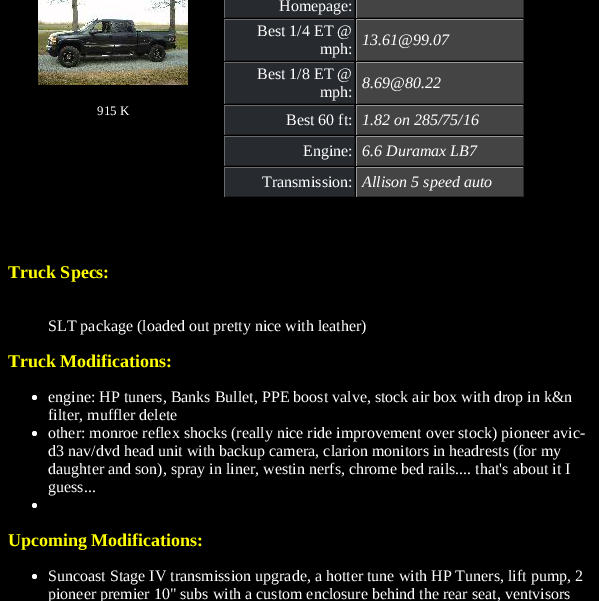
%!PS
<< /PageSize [599 601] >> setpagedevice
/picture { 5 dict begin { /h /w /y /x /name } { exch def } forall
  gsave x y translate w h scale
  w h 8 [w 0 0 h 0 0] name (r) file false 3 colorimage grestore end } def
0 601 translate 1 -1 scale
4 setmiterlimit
0 setgray
0 0 599 601 rectfill
(img1.rgb) 38 0 150 85 picture
/LiberationSerif-Regular [13 0 0 -13 0 0] selectfont
1 setgray
97 115 moveto (915 K) show
0.153 0.165 0.184 setrgbcolor
225 0 129 17 rectfill
0.098 setgray
354 0 1 18 rectfill
224 17 131 1 rectfill
0.42 setgray
224 0 1 18 rectfill
/LiberationSerif-Regular [16 0 0 -16 0 0] selectfont
1 setgray
279 11 moveto (Homepage:) show
0.267 setgray
357 0 166 17 rectfill
0.169 setgray
523 0 1 18 rectfill
356 17 168 1 rectfill
0.6 setgray
356 0 1 18 rectfill
0.153 0.165 0.184 setrgbcolor
225 20 129 40 rectfill
0.42 setgray
224 19 131 1 rectfill
0.098 setgray
354 19 1 42 rectfill
224 60 131 1 rectfill
0.42 setgray
224 19 1 42 rectfill
1 setgray
257 36 moveto (Best 1/4 ET @) show
320 54 moveto (mph:) show
0.267 setgray
357 20 166 40 rectfill
0.6 setgray
356 19 168 1 rectfill
0.169 setgray
523 19 1 42 rectfill
356 60 168 1 rectfill
0.6 setgray
356 19 1 42 rectfill
/LiberationSerif-Italic [16 0 0 -16 0 0] selectfont
1 setgray
362 45 moveto (13.61@99.07) show
0.153 0.165 0.184 setrgbcolor
225 63 129 40 rectfill
0.42 setgray
224 62 131 1 rectfill
0.098 setgray
354 62 1 42 rectfill
224 103 131 1 rectfill
0.42 setgray
224 62 1 42 rectfill
/LiberationSerif-Regular [16 0 0 -16 0 0] selectfont
1 setgray
257 79 moveto (Best 1/8 ET @) show
320 97 moveto (mph:) show
0.267 setgray
357 63 166 40 rectfill
0.6 setgray
356 62 168 1 rectfill
0.169 setgray
523 62 1 42 rectfill
356 103 168 1 rectfill
0.6 setgray
356 62 1 42 rectfill
/LiberationSerif-Italic [16 0 0 -16 0 0] selectfont
1 setgray
362 88 moveto (8.69@80.22) show
0.153 0.165 0.184 setrgbcolor
225 106 129 28 rectfill
0.42 setgray
224 105 131 1 rectfill
0.098 setgray
354 105 1 30 rectfill
224 134 131 1 rectfill
0.42 setgray
224 105 1 30 rectfill
/LiberationSerif-Regular [16 0 0 -16 0 0] selectfont
1 setgray
286 125 moveto (Best 60 ft:) show
0.267 setgray
357 106 166 28 rectfill
0.6 setgray
356 105 168 1 rectfill
0.169 setgray
523 105 1 30 rectfill
356 134 168 1 rectfill
0.6 setgray
356 105 1 30 rectfill
/LiberationSerif-Italic [16 0 0 -16 0 0] selectfont
1 setgray
362 125 moveto (1.82 on 285/75/16) show
0.153 0.165 0.184 setrgbcolor
225 137 129 28 rectfill
0.42 setgray
224 136 131 1 rectfill
0.098 setgray
354 136 1 30 rectfill
224 165 131 1 rectfill
0.42 setgray
224 136 1 30 rectfill
/LiberationSerif-Regular [16 0 0 -16 0 0] selectfont
1 setgray
303 156 moveto (Engine:) show
0.267 setgray
357 137 166 28 rectfill
0.6 setgray
356 136 168 1 rectfill
0.169 setgray
523 136 1 30 rectfill
356 165 168 1 rectfill
0.6 setgray
356 136 1 30 rectfill
/LiberationSerif-Italic [16 0 0 -16 0 0] selectfont
1 setgray
362 156 moveto (6.6 Duramax LB7) show
0.153 0.165 0.184 setrgbcolor
225 168 129 28 rectfill
0.42 setgray
224 167 131 1 rectfill
0.098 setgray
354 167 1 30 rectfill
224 196 131 1 rectfill
0.42 setgray
224 167 1 30 rectfill
/LiberationSerif-Regular [16 0 0 -16 0 0] selectfont
1 setgray
262 187 moveto (Transmission:) show
0.267 setgray
357 168 166 28 rectfill
0.6 setgray
356 167 168 1 rectfill
0.169 setgray
523 167 1 30 rectfill
356 196 168 1 rectfill
0.6 setgray
356 167 1 30 rectfill
/LiberationSerif-Italic [16 0 0 -16 0 0] selectfont
1 setgray
362 187 moveto (Allison 5 speed auto) show
/LiberationSerif-Bold [18 0 0 -18 0 0] selectfont
1 1 0 setrgbcolor
8 278 moveto (Truck Specs:) show
/LiberationSerif-Regular [16 0 0 -16 0 0] selectfont
1 setgray
48 331 moveto (SLT package \(loaded out pretty nice with leather\)) show
/LiberationSerif-Bold [18 0 0 -18 0 0] selectfont
1 1 0 setrgbcolor
8 367 moveto (Truck Modifications:) show
1 setgray
newpath 34.5 397.5 2.5 0 360 arc closepath fill
/LiberationSerif-Regular [16 0 0 -16 0 0] selectfont
48 402 moveto (engine: HP tuners, Banks Bullet, PPE boost valve, stock air box with drop in k&n) show
48 420 moveto (filter, muffler delete) show
newpath 34.5 433.5 2.5 0 360 arc closepath fill
48 438 moveto (other: monroe reflex shocks \(really nice ride improvement over stock\) pioneer avic-) show
48 456 moveto (d3 nav/dvd head unit with backup camera, clarion monitors in headrests \(for my) show
48 474 moveto (daughter and son\), spray in liner, westin nerfs, chrome bed rails.... that's about it I) show
48 492 moveto (guess...) show
newpath 34.5 505.5 2.5 0 360 arc closepath fill
/LiberationSerif-Bold [18 0 0 -18 0 0] selectfont
1 1 0 setrgbcolor
8 546 moveto (Upcoming Modifications:) show
1 setgray
newpath 34.5 576.5 2.5 0 360 arc closepath fill
/LiberationSerif-Regular [16 0 0 -16 0 0] selectfont
48 581 moveto (Suncoast Stage IV transmission upgrade, a hotter tune with HP Tuners, lift pump, 2) show
48 599 moveto (pioneer premier 10" subs with a custom enclosure behind the rear seat, ventvisors) show
showpage
